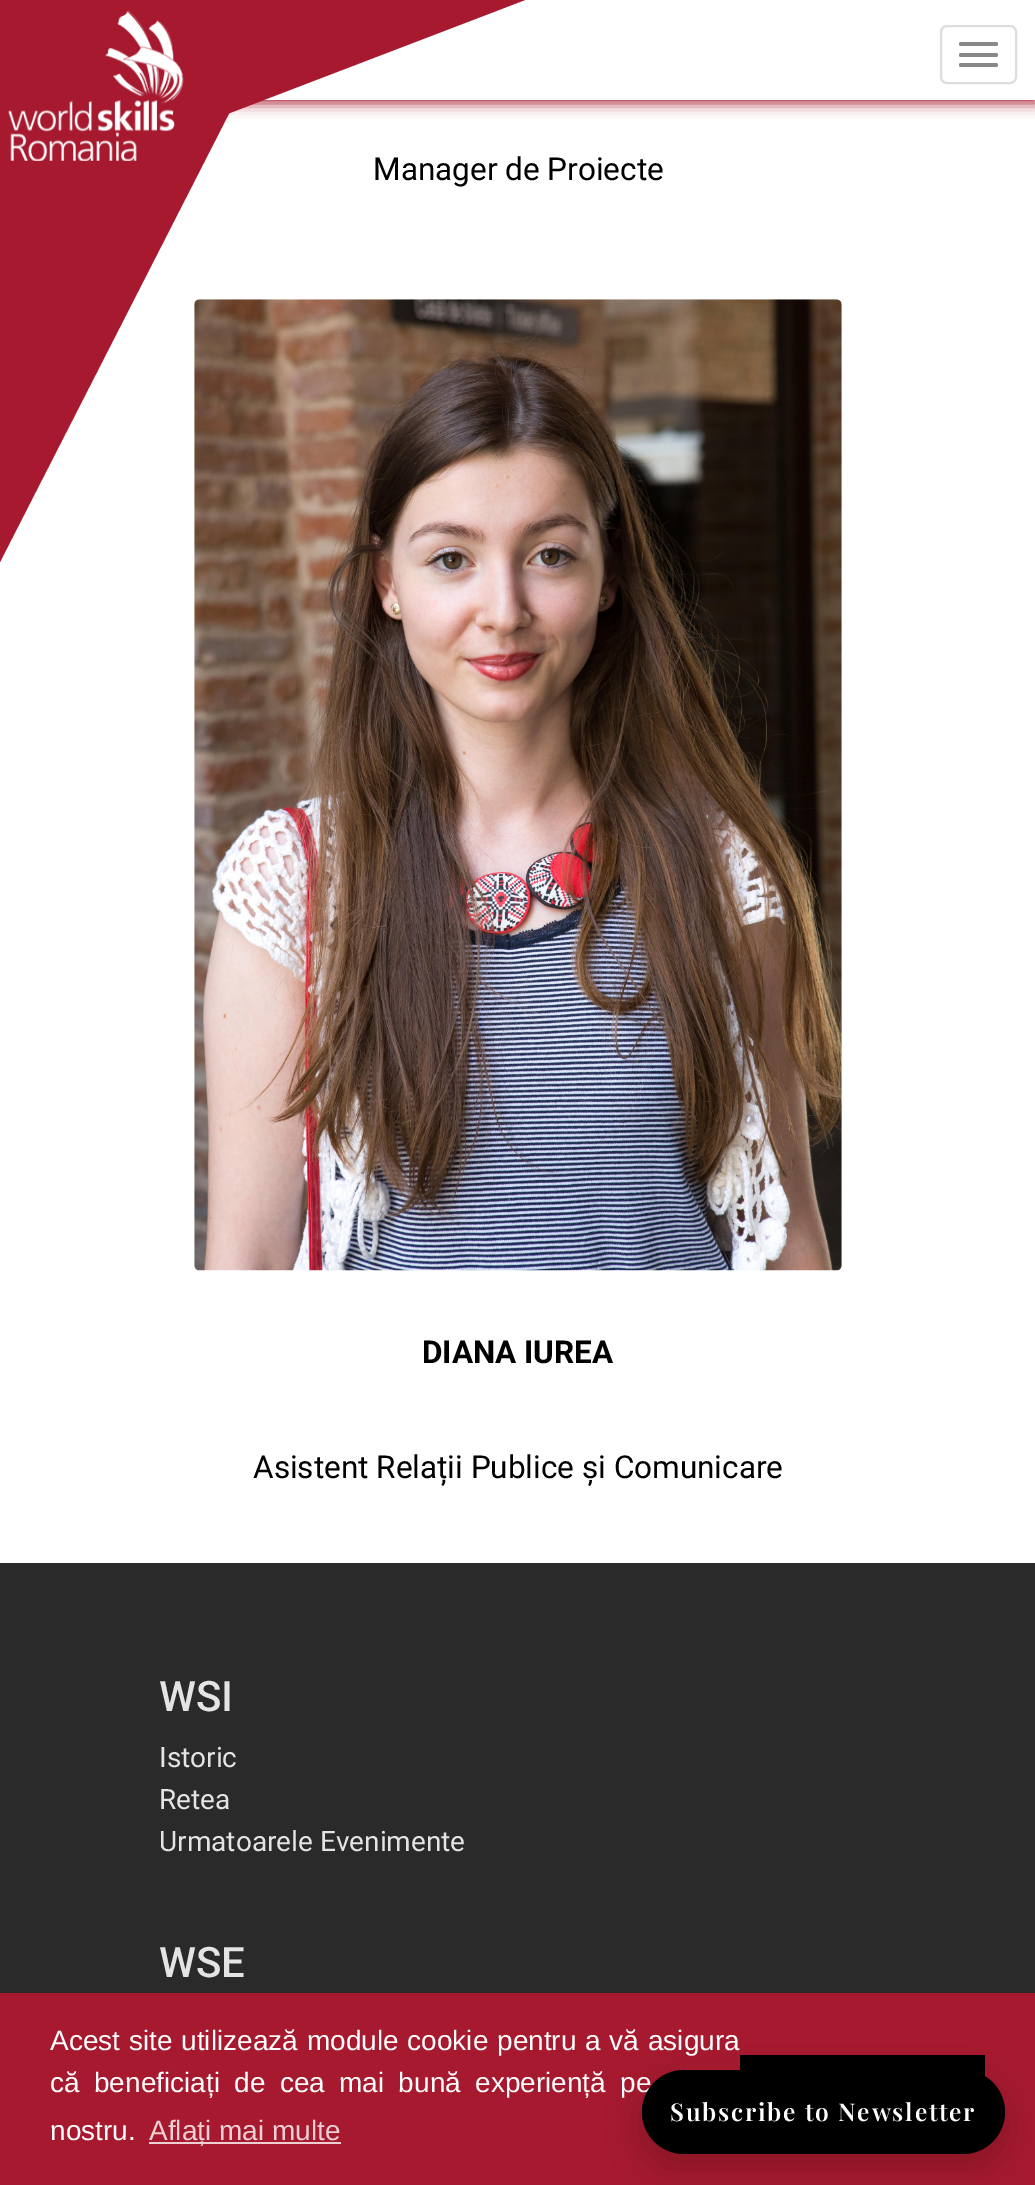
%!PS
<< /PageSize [1035 2185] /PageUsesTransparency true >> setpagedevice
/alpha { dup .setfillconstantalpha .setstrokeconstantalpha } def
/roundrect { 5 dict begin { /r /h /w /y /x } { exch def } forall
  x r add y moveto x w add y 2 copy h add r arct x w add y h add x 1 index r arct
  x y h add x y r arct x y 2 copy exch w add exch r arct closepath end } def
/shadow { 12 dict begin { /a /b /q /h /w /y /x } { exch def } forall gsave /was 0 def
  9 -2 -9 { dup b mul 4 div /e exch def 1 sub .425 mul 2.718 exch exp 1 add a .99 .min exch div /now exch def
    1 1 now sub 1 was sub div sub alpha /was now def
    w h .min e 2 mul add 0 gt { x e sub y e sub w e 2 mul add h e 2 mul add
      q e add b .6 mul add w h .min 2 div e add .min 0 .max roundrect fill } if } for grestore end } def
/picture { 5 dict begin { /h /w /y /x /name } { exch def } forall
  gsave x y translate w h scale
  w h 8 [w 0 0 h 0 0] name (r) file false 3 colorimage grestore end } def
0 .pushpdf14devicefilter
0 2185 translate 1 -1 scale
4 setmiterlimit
1 setgray
0 0 1035 2185 rectfill
0.651 0.098 0.18 setrgbcolor
0 4 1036 99 0 7 1 shadow
1 setgray
263 0 772 100 rectfill
(img2.rgb) 194 299 648 972 picture
0.651 0.098 0.18 setrgbcolor
newpath 0 0 moveto 287 0 lineto 0 562 lineto closepath fill
/Roboto-Regular [31.5 0 0 -31.5 0 0] selectfont
0 setgray
373 180 moveto (Manager de Proiecte) show
0.651 0.098 0.18 setrgbcolor
newpath 0 0 moveto 525 0 lineto 0 201 lineto closepath fill
(img1.rgb) 8 10 176 151 picture
0.867 setgray
2 setlinewidth
941 26 75 57 6 roundrect stroke
0.533 setgray
959 42 39 4 2 roundrect fill
959 53 39 4 2 roundrect fill
959 63 39 4 2 roundrect fill
/Roboto-Bold [31.5 0 0 -31.5 0 0] selectfont
0 setgray
422 1363 moveto (DIANA IUREA) show
/Roboto-Regular [31.5 0 0 -31.5 0 0] selectfont
253 1478 moveto (Asistent Relații Publice și Comunicare) show
0.165 setgray
0 1563 1035 430 rectfill
/Roboto-Medium [42 0 0 -42 0 0] selectfont
0.894 setgray
159 1711 moveto (WSI) show
/Roboto-Regular [28 0 0 -28 0 0] selectfont
159 1767 moveto (Istoric) show
159 1809 moveto (Retea) show
159 1851 moveto (Urmatoarele Evenimente) show
/Roboto-Medium [42 0 0 -42 0 0] selectfont
159 1977 moveto (WSE) show
0.651 0.098 0.18 setrgbcolor
0 1993 1035 192 rectfill
/LiberationSans-Regular [28 0 0 -28 0 0] selectfont
1 setgray
50 2050 moveto 1 0 32 (Acest site utilizează module cookie pentru a vă asigura) widthshow
50 2092 moveto 6.5 0 32 (că beneficiați de cea mai bună experiență pe) widthshow
50 2140 moveto (nostru.) show
0.929 0.82 0.835 setrgbcolor
149 2142 192 2 rectfill
149 2140 moveto (Aflați mai multe) show
0 setgray
740 2055 245 22 rectfill
642 2084 363 84 42 17.5 0.18 shadow
642 2070 363 84 42 roundrect fill
/PlayfairDisplay-SemiBold [24.5 0 0 -24.5 0 0] selectfont
1 setgray
670 2121 moveto 1.75 0 (Subscribe to Newsletter) ashow
.poppdf14devicefilter showpage
